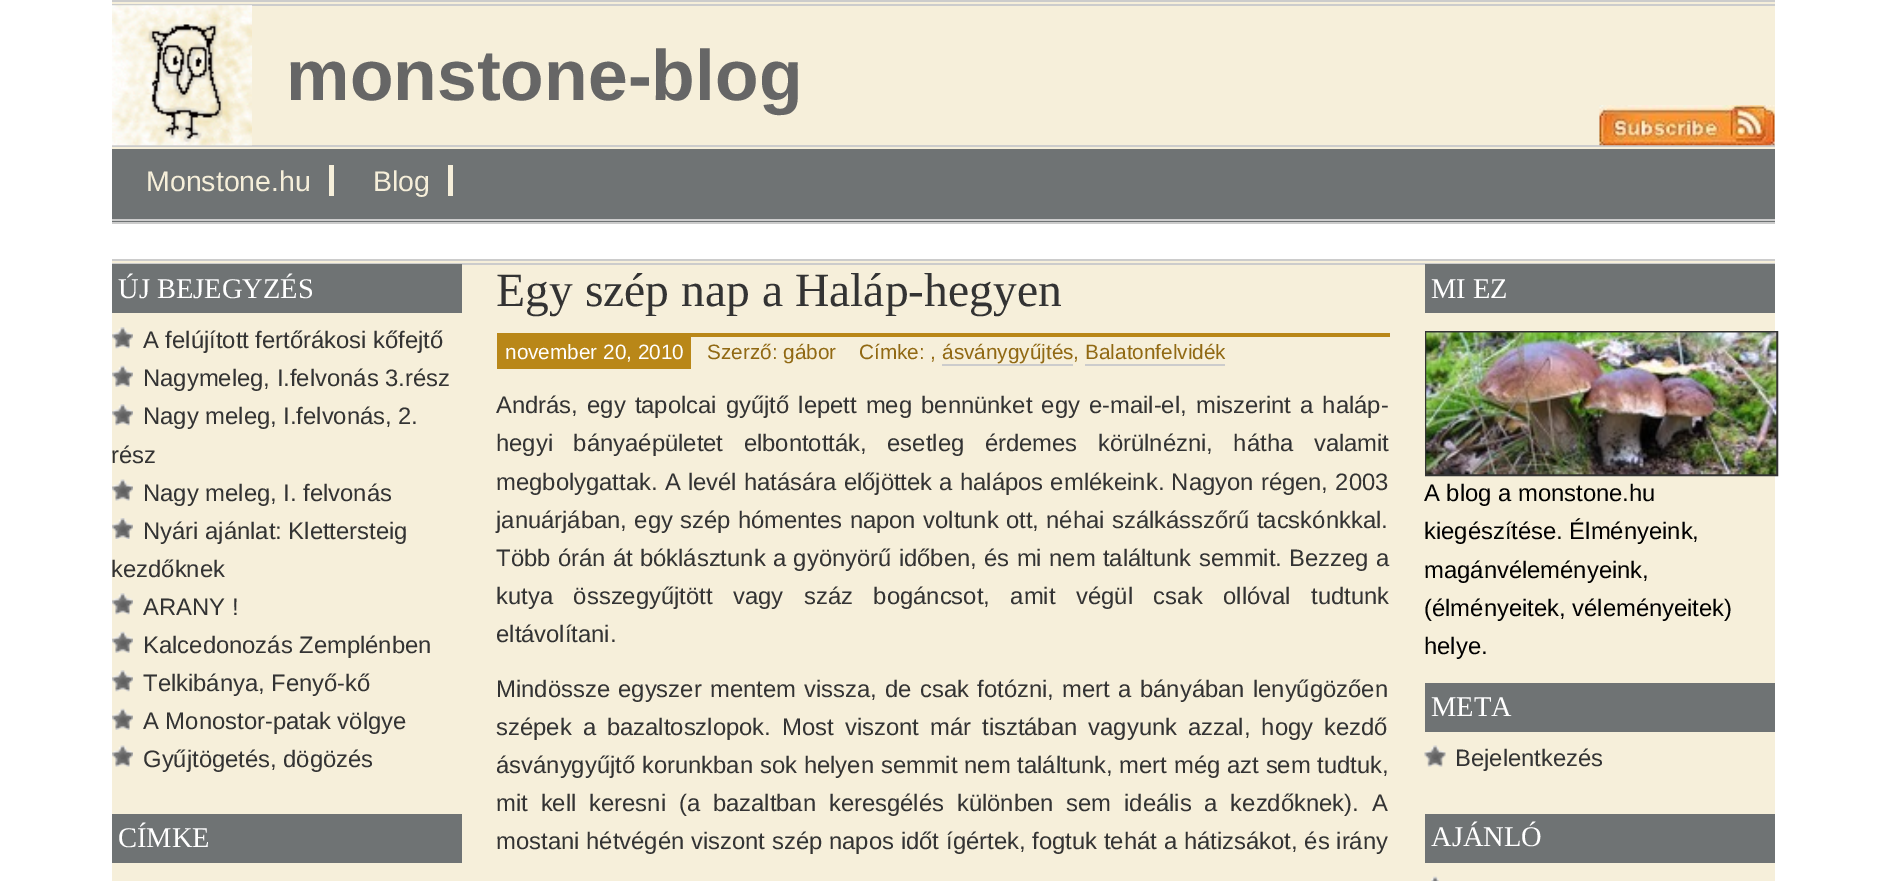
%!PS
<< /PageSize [1884 881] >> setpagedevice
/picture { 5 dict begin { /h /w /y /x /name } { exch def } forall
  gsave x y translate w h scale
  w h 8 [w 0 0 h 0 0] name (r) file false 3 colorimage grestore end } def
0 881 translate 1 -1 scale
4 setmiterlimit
1 setgray
0 0 1884 881 rectfill
0.965 0.937 0.855 setrgbcolor
112 2 1663 143 rectfill
0.8 setgray
112 0 1663 2 rectfill
112 4 1663 2 rectfill
112 145 1663 2 rectfill
(img1.rgb) 112 5 140 141 picture
/LiberationSans-Bold [71.5 0 0 -71.5 0 0] selectfont
0.4 setgray
286 100 moveto (monstone-blog) show
(img2.rgb) 1599 105 176 41 picture
0.435 0.451 0.455 setrgbcolor
112 149 1663 73 rectfill
0.965 0.937 0.855 setrgbcolor
112 147 1663 2 rectfill
0.8 setgray
112 219 1663 2 rectfill
112 222 1663 2 rectfill
/LiberationSans-Regular [28.5 0 0 -28.5 0 0] selectfont
0.965 0.937 0.855 setrgbcolor
146 191 moveto (Monstone.hu) show
329 165 5 31 rectfill
373 191 moveto (Blog) show
448 165 5 31 rectfill
112 261 1663 620 rectfill
0.8 setgray
112 259 1663 2 rectfill
112 263 1663 2 rectfill
0.435 0.451 0.455 setrgbcolor
112 264 350 49 rectfill
/LiberationSerif-Regular [28.5 0 0 -28.5 0 0] selectfont
1 setgray
118 298 moveto (ÚJ BEJEGYZÉS) show
(img3.rgb) 112 327 21 22 picture
/LiberationSans-Regular [23.8 0 0 -23.8 0 0] selectfont
0.2 setgray
143 348 moveto (A felújított fertőrákosi kőfejtő) show
(img4.rgb) 112 365 21 22 picture
143 386 moveto (Nagymeleg, I.felvonás 3.rész) show
(img3.rgb) 112 404 21 22 picture
143 424 moveto (Nagy meleg, I.felvonás, 2.) show
111 463 moveto (rész) show
(img5.rgb) 112 479 21 22 picture
143 501 moveto (Nagy meleg, I. felvonás) show
(img6.rgb) 112 518 21 21 picture
143 539 moveto (Nyári ajánlat: Klettersteig) show
111 577 moveto (kezdőknek) show
(img3.rgb) 112 593 21 22 picture
143 615 moveto (ARANY !) show
(img4.rgb) 112 631 21 22 picture
143 653 moveto (Kalcedonozás Zemplénben) show
(img3.rgb) 112 670 21 22 picture
143 691 moveto (Telkibánya, Fenyő-kő) show
(img4.rgb) 112 708 21 22 picture
143 729 moveto (A Monostor-patak völgye) show
(img5.rgb) 112 745 21 22 picture
143 767 moveto (Gyűjtögetés, dögözés) show
0.435 0.451 0.455 setrgbcolor
112 814 350 49 rectfill
/LiberationSerif-Regular [28.5 0 0 -28.5 0 0] selectfont
1 setgray
118 847 moveto (CÍMKE) show
/LiberationSerif-Regular [47.6 0 0 -47.6 0 0] selectfont
0.2 setgray
496 306 moveto (Egy szép nap a Haláp-hegyen) show
0.725 0.529 0.094 setrgbcolor
497 333 893 4 rectfill
497 337 194 32 rectfill
/LiberationSans-Regular [20.75 0 0 -20.75 0 0] selectfont
1 setgray
505 359 moveto (november 20, 2010) show
0.569 0.412 0.075 setrgbcolor
707 359 moveto (Szerző: gábor) show
859 359 moveto (Címke: , ásványgyűjtés, Balatonfelvidék) show
0.8 setgray
942 364 131 2 rectfill
1085 364 140 2 rectfill
/LiberationSans-Regular [23.8 0 0 -23.8 0 0] selectfont
0.2 setgray
496 413 moveto 2.5 0 32 (András, egy tapolcai gyűjtő lepett meg bennünket egy e-mail-el, miszerint a haláp-) widthshow
496 451 moveto 14 0 32 (hegyi bányaépületet elbontották, esetleg érdemes körülnézni, hátha valamit) widthshow
496 490 moveto 0.6 0 32 (megbolygattak. A levél hatására előjöttek a halápos emlékeink. Nagyon régen, 2003) widthshow
496 528 moveto 0.75 0 32 (januárjában, egy szép hómentes napon voltunk ott, néhai szálkásszőrű tacskónkkal.) widthshow
496 566 moveto 0.75 0 32 (Több órán át bóklásztunk a gyönyörű időben, és mi nem találtunk semmit. Bezzeg a) widthshow
496 604 moveto 14 0 32 (kutya összegyűjtött vagy száz bogáncsot, amit végül csak ollóval tudtunk) widthshow
496 642 moveto (eltávolítani.) show
496 697 moveto 1.75 0 32 (Mindössze egyszer mentem vissza, de csak fotózni, mert a bányában lenyűgözően) widthshow
496 735 moveto 4.5 0 32 (szépek a bazaltoszlopok. Most viszont már tisztában vagyunk azzal, hogy kezdő) widthshow
496 773 moveto 0.25 0 32 (ásványgyűjtő korunkban sok helyen semmit nem találtunk, mert még azt sem tudtuk,) widthshow
496 811 moveto 6.25 0 32 (mit kell keresni \(a bazaltban keresgélés különben sem ideális a kezdőknek\). A) widthshow
496 849 moveto 0.25 0 32 (mostani hétvégén viszont szép napos időt ígértek, fogtuk tehát a hátizsákot, és irány) widthshow
0.435 0.451 0.455 setrgbcolor
1425 264 350 49 rectfill
/LiberationSerif-Regular [28.5 0 0 -28.5 0 0] selectfont
1 setgray
1431 298 moveto (MI EZ) show
0.2 setgray
2 setlinewidth
1426 332 351 143 rectstroke
(img7.rgb) 1426 332 351 143 picture
/LiberationSans-Regular [23.8 0 0 -23.8 0 0] selectfont
0 setgray
1424 501 moveto (A blog a monstone.hu) show
1424 539 moveto (kiegészítése. Élményeink,) show
1424 578 moveto (magánvéleményeink,) show
1424 616 moveto (\(élményeitek, véleményeitek\)) show
1424 654 moveto (helye.) show
0.435 0.451 0.455 setrgbcolor
1425 683 350 49 rectfill
/LiberationSerif-Regular [28.5 0 0 -28.5 0 0] selectfont
1 setgray
1431 716 moveto (META) show
(img8.rgb) 1424 745 22 22 picture
/LiberationSans-Regular [23.8 0 0 -23.8 0 0] selectfont
0.2 setgray
1455 766 moveto (Bejelentkezés) show
0.435 0.451 0.455 setrgbcolor
1425 814 350 49 rectfill
/LiberationSerif-Regular [28.5 0 0 -28.5 0 0] selectfont
1 setgray
1431 846 moveto (AJÁNLÓ) show
(img9.rgb) 1431 876 8 5 picture
showpage
